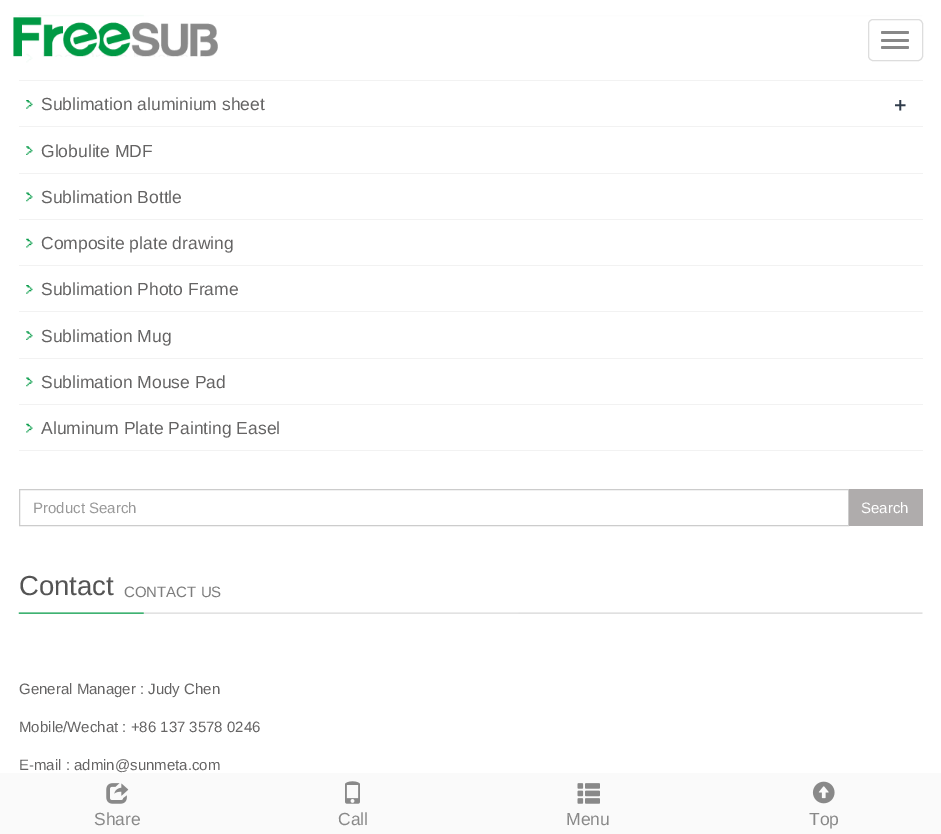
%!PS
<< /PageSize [941 834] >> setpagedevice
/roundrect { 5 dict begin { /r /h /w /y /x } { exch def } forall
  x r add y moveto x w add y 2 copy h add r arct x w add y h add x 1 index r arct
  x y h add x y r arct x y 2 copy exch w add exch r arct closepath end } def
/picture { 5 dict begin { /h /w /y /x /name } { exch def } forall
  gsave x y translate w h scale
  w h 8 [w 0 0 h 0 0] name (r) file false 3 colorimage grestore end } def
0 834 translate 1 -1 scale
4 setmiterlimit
1 setgray
0 0 941 834 rectfill
(img3.rgb) 26 53 7 10 picture
(img1.rgb) 13 17 205 40 picture
0.867 setgray
868.5 19.5 54 41 4.5 roundrect stroke
0.533 setgray
881 31 28 3 1.5 roundrect fill
881 39 28 3 1.5 roundrect fill
881 46 28 3 1.5 roundrect fill
(img2.rgb) 18 14 905 3 picture
0.949 setgray
19 80 904 1 rectfill
(img4.rgb) 26 100 7 9 picture
19 126 904 1 rectfill
/LiberationSans-Regular [17.5 0 0 -17.5 0 0] selectfont
0.396 0.392 0.392 setrgbcolor
41 110 moveto (Sublimation aluminium sheet) show
/OpenSans-SemiBold [22 0 0 -22 0 0] selectfont
0.188 0.235 0.294 setrgbcolor
894 113 moveto (+) show
(img5.rgb) 26 146 7 9 picture
0.949 setgray
19 173 904 1 rectfill
/LiberationSans-Regular [17.5 0 0 -17.5 0 0] selectfont
0.396 0.392 0.392 setrgbcolor
41 157 moveto (Globulite MDF) show
(img6.rgb) 26 192 7 10 picture
0.949 setgray
19 219 904 1 rectfill
0.396 0.392 0.392 setrgbcolor
41 203 moveto (Sublimation Bottle) show
(img7.rgb) 26 238 7 10 picture
0.949 setgray
19 265 904 1 rectfill
0.396 0.392 0.392 setrgbcolor
41 249 moveto (Composite plate drawing) show
(img4.rgb) 26 285 7 9 picture
0.949 setgray
19 311 904 1 rectfill
0.396 0.392 0.392 setrgbcolor
41 295 moveto (Sublimation Photo Frame) show
(img5.rgb) 26 331 7 9 picture
0.949 setgray
19 358 904 1 rectfill
0.396 0.392 0.392 setrgbcolor
41 342 moveto (Sublimation Mug) show
(img6.rgb) 26 377 7 10 picture
0.949 setgray
19 404 904 1 rectfill
0.396 0.392 0.392 setrgbcolor
41 388 moveto (Sublimation Mouse Pad) show
(img7.rgb) 26 423 7 10 picture
0.949 setgray
19 450 904 1 rectfill
0.396 0.392 0.392 setrgbcolor
41 434 moveto (Aluminum Plate Painting Easel) show
0.8 setgray
19.5 489.5 829 36 rectstroke
/LiberationSans-Regular [15 0 0 -15 0 0] selectfont
0.6 setgray
33 513 moveto (Product Search) show
0.686 0.675 0.675 setrgbcolor
849 489 74 37 rectfill
1 setgray
861 513 moveto (Search) show
(img8.rgb) 18 612 905 2 picture
/LiberationSans-Regular [27.5 0 0 -27.5 0 0] selectfont
0.329 setgray
19 595 moveto (Contact) show
/LiberationSans-Regular [15 0 0 -15 0 0] selectfont
0.49 setgray
124 597 moveto (CONTACT US) show
0.396 0.392 0.392 setrgbcolor
19 694 moveto (General Manager : Judy Chen) show
19 732 moveto (Mobile/Wechat : +86 137 3578 0246) show
19 770 moveto (E-mail : admin@sunmeta.com) show
0.98 setgray
0 773 941 61 rectfill
(img9.rgb) 106 783 23 21 picture
/LiberationSans-Regular [17.5 0 0 -17.5 0 0] selectfont
0.537 setgray
94 825 moveto (Share) show
(img10.rgb) 345 781 15 23 picture
338 825 moveto (Call) show
(img11.rgb) 577 783 23 21 picture
566 825 moveto (Menu) show
(img12.rgb) 812 781 23 23 picture
809 825 moveto (Top) show
showpage
